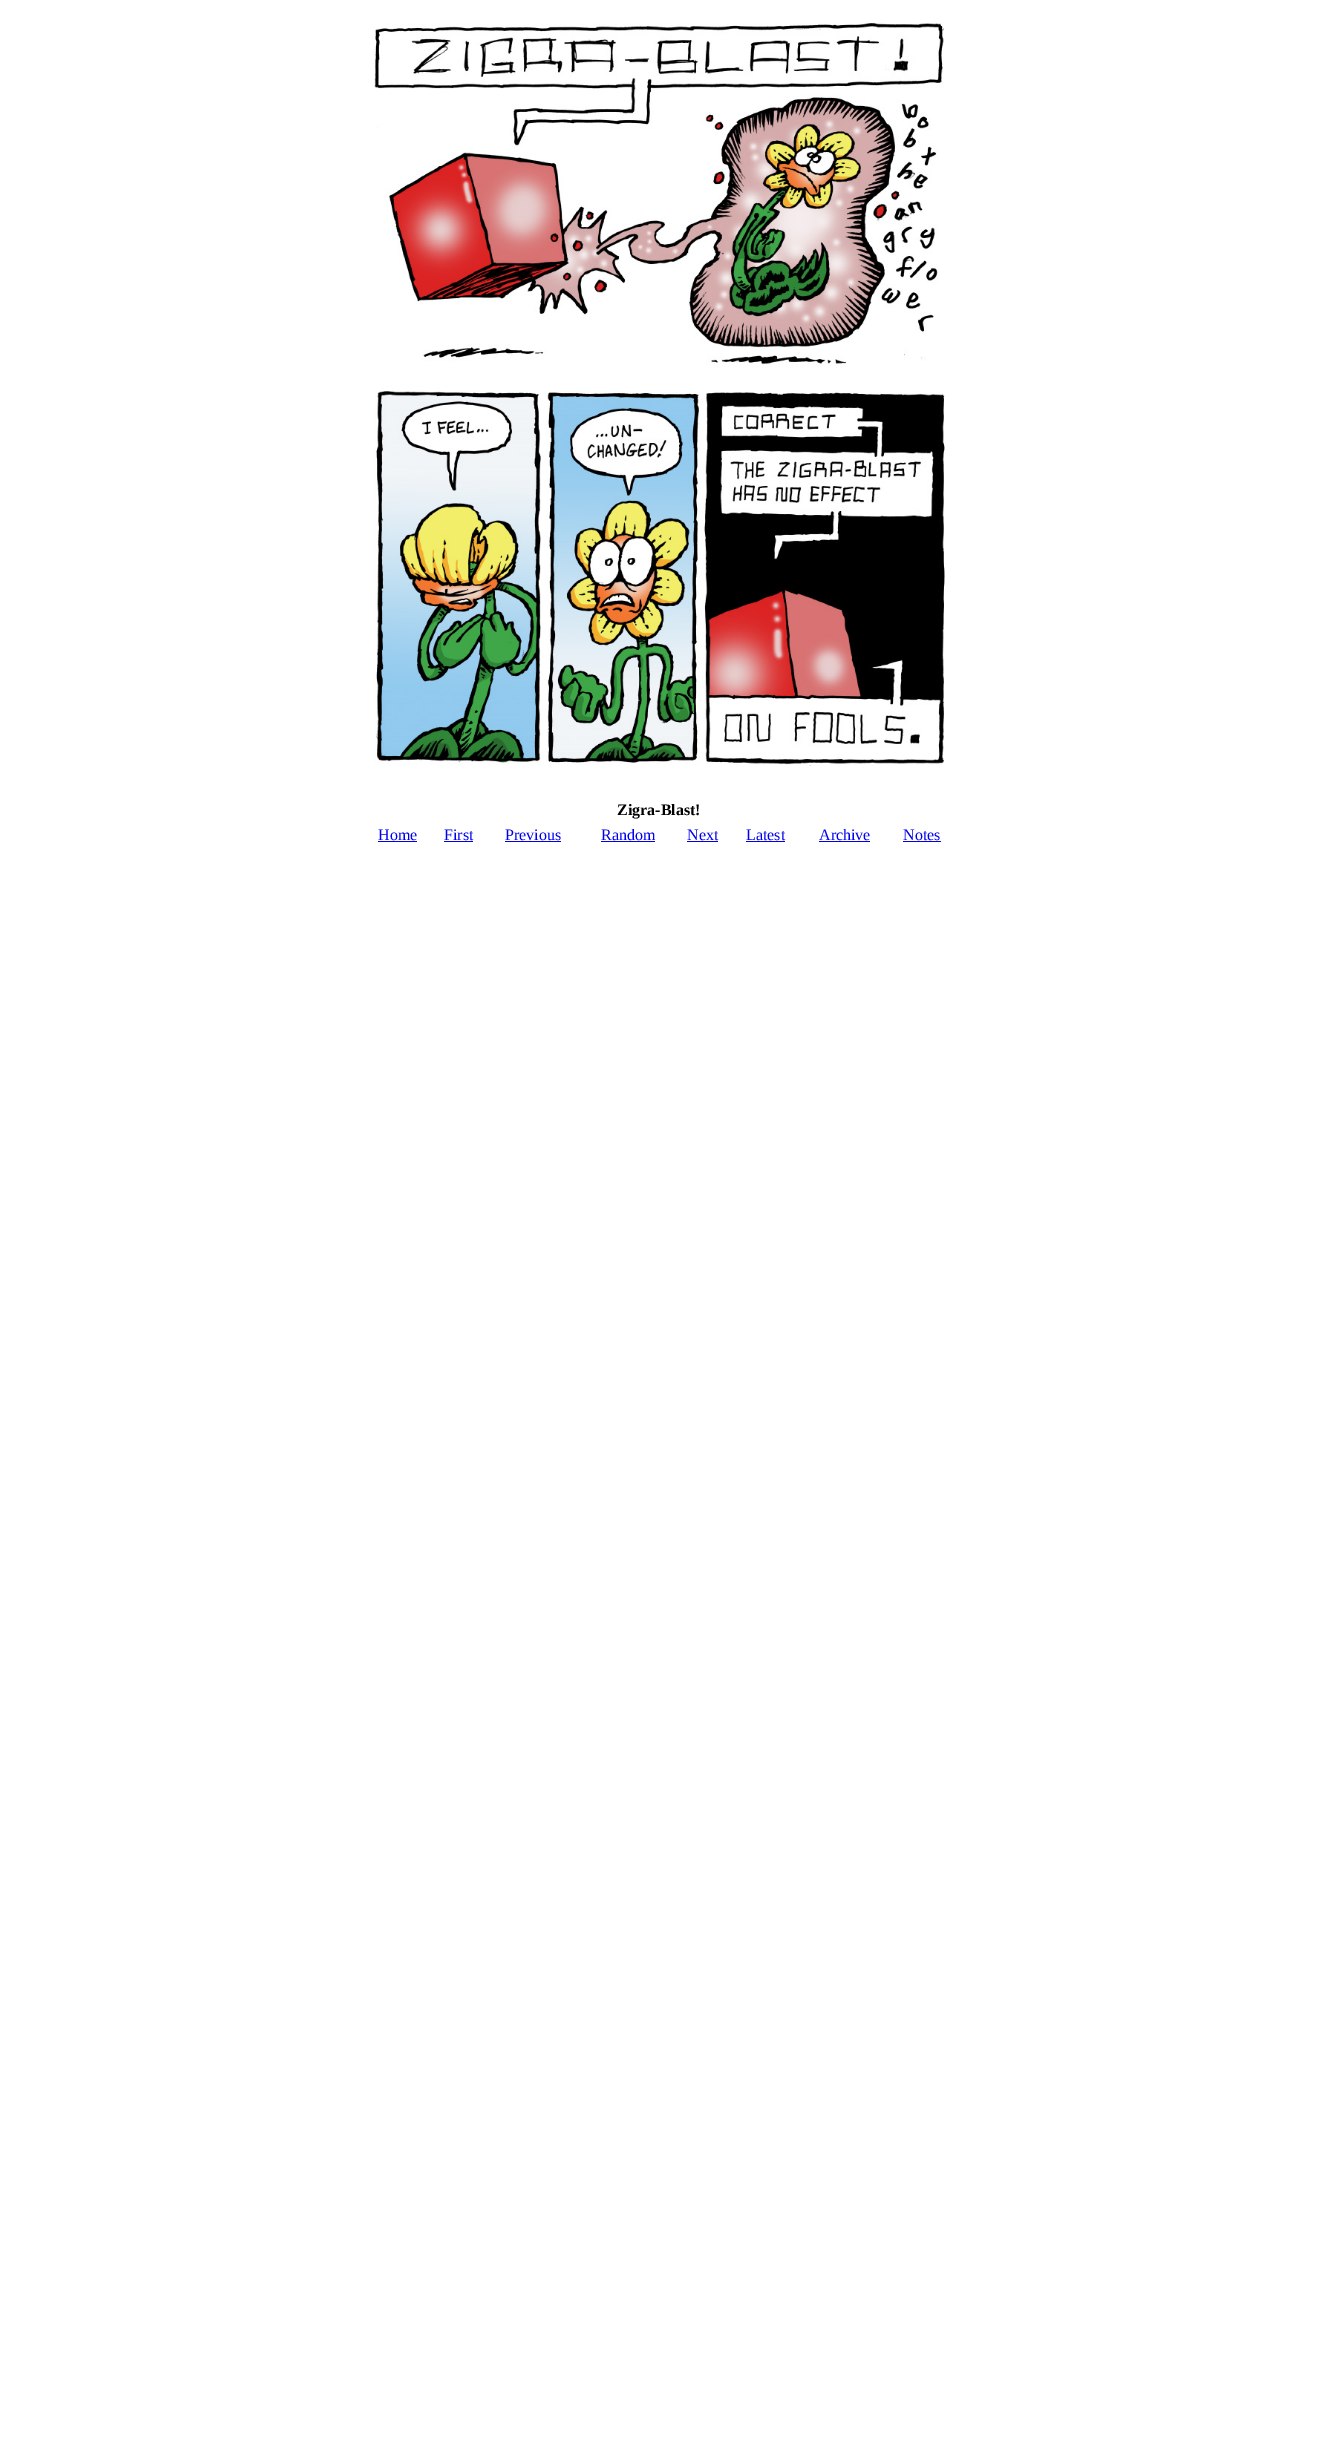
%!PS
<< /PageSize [1318 2446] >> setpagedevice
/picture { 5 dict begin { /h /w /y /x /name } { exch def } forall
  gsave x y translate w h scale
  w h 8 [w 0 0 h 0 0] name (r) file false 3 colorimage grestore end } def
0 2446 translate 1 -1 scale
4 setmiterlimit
1 setgray
0 0 1318 2446 rectfill
(img1.rgb) 374 23 571 743 picture
/LiberationSerif-Bold [16 0 0 -16 0 0] selectfont
0 setgray
617 815 moveto (Zigra-Blast!) show
/LiberationSerif-Regular [16 0 0 -16 0 0] selectfont
0 0 0.933 setrgbcolor
378 840 moveto (Home) show
378 841 39 1 rectfill
444 840 moveto (First) show
444 841 29 1 rectfill
505 840 moveto (Previous) show
505 841 56 1 rectfill
601 840 moveto (Random) show
601 841 54 1 rectfill
687 840 moveto (Next) show
687 841 31 1 rectfill
746 840 moveto (Latest) show
746 841 39 1 rectfill
819 840 moveto (Archive) show
819 841 51 1 rectfill
903 840 moveto (Notes) show
903 841 38 1 rectfill
showpage
